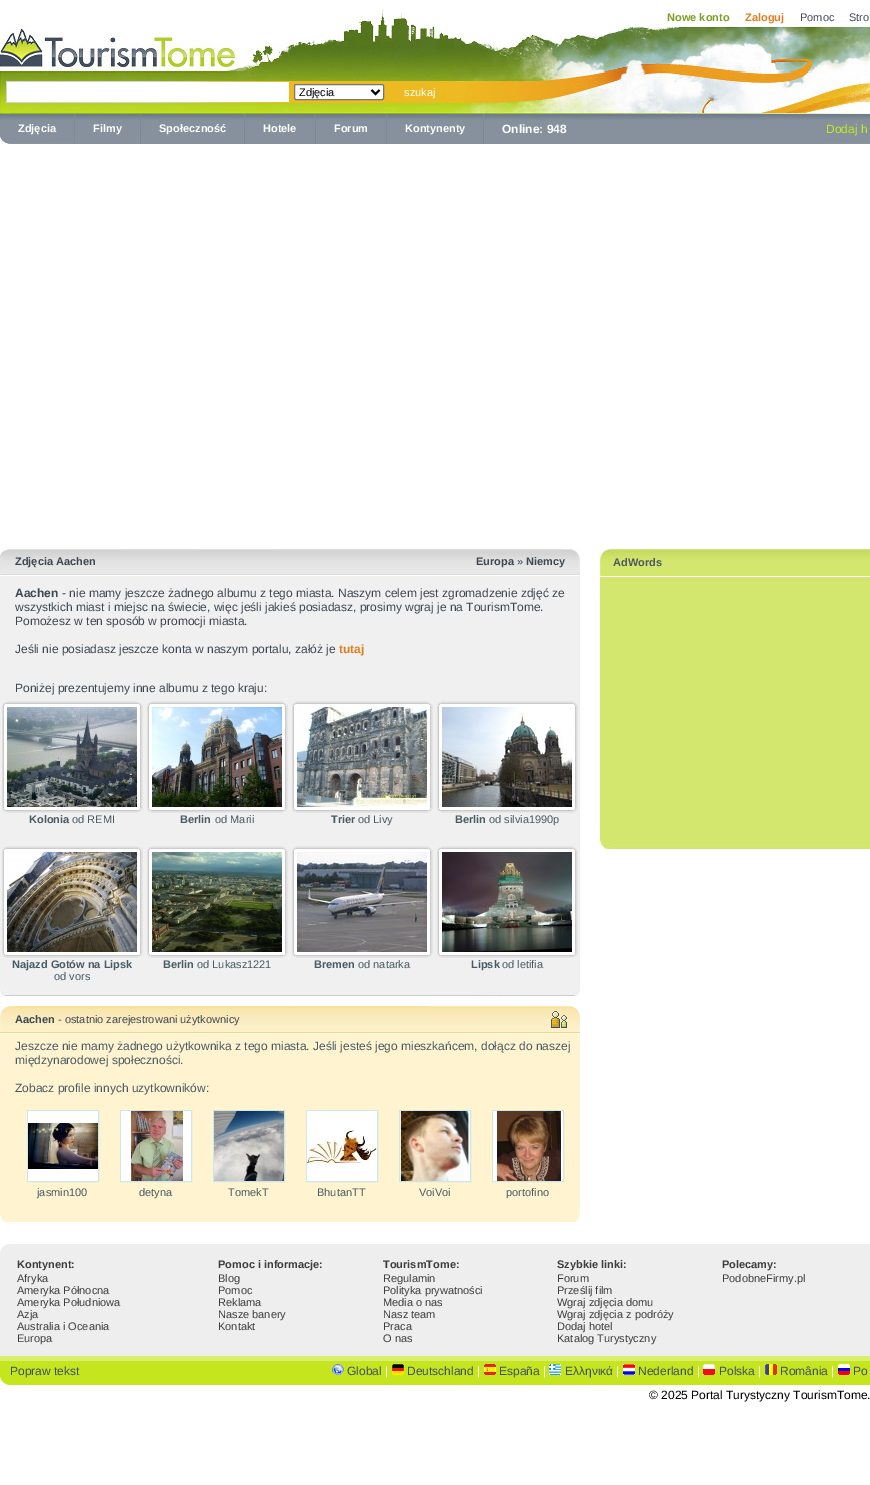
%!PS
<< /PageSize [870 1485] >> setpagedevice
/roundrect { 5 dict begin { /r /h /w /y /x } { exch def } forall
  x r add y moveto x w add y 2 copy h add r arct x w add y h add x 1 index r arct
  x y h add x y r arct x y 2 copy exch w add exch r arct closepath end } def
/picture { 5 dict begin { /h /w /y /x /name } { exch def } forall
  gsave x y translate w h scale
  w h 8 [w 0 0 h 0 0] name (r) file false 3 colorimage grestore end } def
0 1485 translate 1 -1 scale
4 setmiterlimit
1 setgray
0 0 870 1485 rectfill
(img1.rgb) 0 10 870 62 picture
/LiberationSans-Bold [11 0 0 -11 0 0] selectfont
0.49 0.624 0.141 setrgbcolor
667 21 moveto (Nowe konto) show
0.878 0.49 0.122 setrgbcolor
745 21 moveto (Zaloguj) show
/LiberationSans-Regular [11 0 0 -11 0 0] selectfont
0.275 0.282 0.365 setrgbcolor
800 21 moveto (Pomoc) show
849 21 moveto (Stro) show
(img2.rgb) 0 26 236 42 picture
(img3.rgb) 0 72 870 41 picture
1 setgray
294.5 84.5 89 15 1.5 roundrect gsave fill grestore
0.463 setgray
stroke
0 setgray
2 setlinewidth
newpath 371.5 90 moveto 375.5 94 lineto 379.5 90 lineto stroke
299 96 moveto (Zdjęcia) show
1 setgray
404 96 moveto (szukaj) show
(img4.rgb) 0 113 870 31 picture
/LiberationSans-Bold [11 0 0 -11 0 0] selectfont
18 132 moveto (Zdjęcia) show
0.498 0.537 0.584 setrgbcolor
74 114 1 30 rectfill
1 setgray
93 132 moveto (Filmy) show
0.498 0.537 0.584 setrgbcolor
140 114 1 30 rectfill
1 setgray
159 132 moveto (Społeczność) show
0.498 0.537 0.584 setrgbcolor
244 114 1 30 rectfill
1 setgray
263 132 moveto (Hotele) show
0.498 0.537 0.584 setrgbcolor
315 114 1 30 rectfill
1 setgray
334 132 moveto (Forum) show
0.498 0.537 0.584 setrgbcolor
386 114 1 30 rectfill
1 setgray
405 132 moveto (Kontynenty) show
0.498 0.537 0.584 setrgbcolor
483 114 1 30 rectfill
/LiberationSans-Bold [12 0 0 -12 0 0] selectfont
1 setgray
502 133 moveto (Online: 948) show
/LiberationSans-Regular [12 0 0 -12 0 0] selectfont
0.757 0.925 0.086 setrgbcolor
826 133 moveto (Dodaj h) show
(img5.rgb) 0 549 580 26 picture
/LiberationSans-Bold [11 0 0 -11 0 0] selectfont
0.243 0.282 0.322 setrgbcolor
15 565 moveto (Zdjęcia Aachen) show
476 565 moveto (Europa) show
/LiberationSans-Regular [11 0 0 -11 0 0] selectfont
517 565 moveto (») show
/LiberationSans-Bold [11 0 0 -11 0 0] selectfont
526 565 moveto (Niemcy) show
0.941 setgray
0 576 580 414 rectfill
/LiberationSans-Bold [12 0 0 -12 0 0] selectfont
0.243 0.282 0.322 setrgbcolor
15 597 moveto (Aachen) show
/LiberationSans-Regular [12 0 0 -12 0 0] selectfont
62 597 moveto (- nie mamy jeszcze żadnego albumu z tego miasta. Naszym celem jest zgromadzenie zdjęć ze) show
15 611 moveto (wszystkich miast i miejsc na świecie, więc jeśli jakieś posiadasz, prosimy wgraj je na TourismTome.) show
15 625 moveto (Pomożesz w ten sposób w promocji miasta.) show
15 653 moveto (Jeśli nie posiadasz jeszcze konta w naszym portalu, załóż je) show
/LiberationSans-Bold [12 0 0 -12 0 0] selectfont
0.878 0.49 0.122 setrgbcolor
339 653 moveto (tutaj) show
/LiberationSans-Regular [12 0 0 -12 0 0] selectfont
0.243 0.282 0.322 setrgbcolor
15 692 moveto (Poniżej prezentujemy inne albumu z tego kraju:) show
(img6.rgb) 2 701 141 112 picture
(img7.rgb) 7 707 130 100 picture
/LiberationSans-Bold [11 0 0 -11 0 0] selectfont
0.282 0.353 0.392 setrgbcolor
29 823 moveto (Kolonia) show
/LiberationSans-Regular [11 0 0 -11 0 0] selectfont
72 823 moveto (od REMI) show
(img6.rgb) 147 701 141 112 picture
(img8.rgb) 152 707 130 100 picture
/LiberationSans-Bold [11 0 0 -11 0 0] selectfont
180 823 moveto (Berlin) show
/LiberationSans-Regular [11 0 0 -11 0 0] selectfont
215 823 moveto (od Marii) show
(img6.rgb) 292 701 141 112 picture
(img9.rgb) 297 707 130 100 picture
/LiberationSans-Bold [11 0 0 -11 0 0] selectfont
331 823 moveto (Trier) show
/LiberationSans-Regular [11 0 0 -11 0 0] selectfont
358 823 moveto (od Livy) show
(img6.rgb) 437 701 141 112 picture
(img10.rgb) 442 707 130 100 picture
/LiberationSans-Bold [11 0 0 -11 0 0] selectfont
455 823 moveto (Berlin) show
/LiberationSans-Regular [11 0 0 -11 0 0] selectfont
489 823 moveto (od silvia1990p) show
(img6.rgb) 2 846 141 112 picture
(img11.rgb) 7 852 130 100 picture
/LiberationSans-Bold [11 0 0 -11 0 0] selectfont
12 968 moveto (Najazd Gotów na Lipsk) show
/LiberationSans-Regular [11 0 0 -11 0 0] selectfont
54 980 moveto (od vors) show
(img6.rgb) 147 846 141 112 picture
(img12.rgb) 152 852 130 100 picture
/LiberationSans-Bold [11 0 0 -11 0 0] selectfont
163 968 moveto (Berlin) show
/LiberationSans-Regular [11 0 0 -11 0 0] selectfont
197 968 moveto (od Lukasz1221) show
(img6.rgb) 292 846 141 112 picture
(img13.rgb) 297 852 130 100 picture
/LiberationSans-Bold [11 0 0 -11 0 0] selectfont
314 968 moveto (Bremen) show
/LiberationSans-Regular [11 0 0 -11 0 0] selectfont
358 968 moveto (od natarka) show
(img6.rgb) 437 846 141 112 picture
(img14.rgb) 442 852 130 100 picture
/LiberationSans-Bold [11 0 0 -11 0 0] selectfont
471 968 moveto (Lipsk) show
/LiberationSans-Regular [11 0 0 -11 0 0] selectfont
502 968 moveto (od letifia) show
(img15.rgb) 0 990 580 6 picture
(img16.rgb) 0 1006 580 27 picture
/LiberationSans-Bold [11 0 0 -11 0 0] selectfont
0.243 0.282 0.322 setrgbcolor
15 1023 moveto (Aachen) show
/LiberationSans-Regular [11 0 0 -11 0 0] selectfont
58 1023 moveto (- ostatnio zarejestrowani użytkownicy) show
1 0.953 0.816 setrgbcolor
0 1034 580 180 rectfill
/LiberationSans-Regular [12 0 0 -12 0 0] selectfont
0.282 0.353 0.392 setrgbcolor
15 1050 moveto (Jeszcze nie mamy żadnego użytkownika z tego miasta. Jeśli jesteś jego mieszkańcem, dołącz do naszej) show
15 1064 moveto (międzynarodowej społeczności.) show
15 1092 moveto (Zobacz profile innych uzytkowników:) show
0.796 0.914 0.922 setrgbcolor
1 setlinewidth
27.5 1110.5 71 71 rectstroke
(img17.rgb) 28 1111 70 70 picture
/LiberationSans-Regular [11 0 0 -11 0 0] selectfont
0.282 0.353 0.392 setrgbcolor
37 1196 moveto (jasmin100) show
0.796 0.914 0.922 setrgbcolor
120.5 1110.5 71 71 rectstroke
(img18.rgb) 121 1111 70 70 picture
0.282 0.353 0.392 setrgbcolor
139 1196 moveto (detyna) show
0.796 0.914 0.922 setrgbcolor
213.5 1110.5 71 71 rectstroke
(img19.rgb) 214 1111 70 70 picture
0.282 0.353 0.392 setrgbcolor
228 1196 moveto (TomekT) show
0.796 0.914 0.922 setrgbcolor
306.5 1110.5 71 71 rectstroke
(img20.rgb) 307 1111 70 70 picture
0.282 0.353 0.392 setrgbcolor
317 1196 moveto (BhutanTT) show
0.796 0.914 0.922 setrgbcolor
399.5 1110.5 71 71 rectstroke
(img21.rgb) 400 1111 70 70 picture
0.282 0.353 0.392 setrgbcolor
419 1196 moveto (VoiVoi) show
0.796 0.914 0.922 setrgbcolor
492.5 1110.5 71 71 rectstroke
(img22.rgb) 493 1111 70 70 picture
0.282 0.353 0.392 setrgbcolor
506 1196 moveto (portofino) show
(img23.rgb) 0 1214 580 8 picture
(img24.rgb) 600 549 270 27 picture
/LiberationSans-Bold [11 0 0 -11 0 0] selectfont
0.31 0.345 0.38 setrgbcolor
613 566 moveto (AdWords) show
0.827 0.906 0.431 setrgbcolor
600 577 270 263 rectfill
(img25.rgb) 600 840 270 9 picture
(img26.rgb) 0 1244 870 9 picture
0.933 setgray
0 1253 870 103 rectfill
0.243 0.239 0.235 setrgbcolor
17 1268 moveto (Kontynent:) show
218 1268 moveto (Pomoc i informacje:) show
383 1268 moveto (TourismTome:) show
557 1268 moveto (Szybkie linki:) show
722 1268 moveto (Polecamy:) show
/LiberationSans-Regular [11 0 0 -11 0 0] selectfont
17 1282 moveto (Afryka) show
17 1294 moveto (Ameryka Północna) show
17 1306 moveto (Ameryka Południowa) show
17 1318 moveto (Azja) show
17 1330 moveto (Australia i Oceania) show
17 1342 moveto (Europa) show
218 1282 moveto (Blog) show
218 1294 moveto (Pomoc) show
218 1306 moveto (Reklama) show
218 1318 moveto (Nasze banery) show
218 1330 moveto (Kontakt) show
383 1282 moveto (Regulamin) show
383 1294 moveto (Polityka prywatności) show
383 1306 moveto (Media o nas) show
383 1318 moveto (Nasz team) show
383 1330 moveto (Praca) show
383 1342 moveto (O nas) show
557 1282 moveto (Forum) show
557 1294 moveto (Prześlij film) show
557 1306 moveto (Wgraj zdjęcia domu) show
557 1318 moveto (Wgraj zdjęcia z podróży) show
557 1330 moveto (Dodaj hotel) show
557 1342 moveto (Katalog Turystyczny) show
722 1282 moveto (PodobneFirmy.pl) show
0.773 0.898 0.118 setrgbcolor
0 1361 870 24 rectfill
(img27.rgb) 0 1377 93 8 picture
0.855 0.937 0.424 setrgbcolor
0 1356 870 5 rectfill
/LiberationSans-Regular [12 0 0 -12 0 0] selectfont
0.259 0.31 0.369 setrgbcolor
10 1375 moveto (Popraw tekst) show
(img28.rgb) 332 1364 12 11 picture
347 1375 moveto (Global) show
1 setgray
385 1375 moveto (|) show
(img29.rgb) 392 1364 12 11 picture
0.259 0.31 0.369 setrgbcolor
407 1375 moveto (Deutschland) show
1 setgray
477 1375 moveto (|) show
(img30.rgb) 484 1364 12 11 picture
0.259 0.31 0.369 setrgbcolor
499 1375 moveto (España) show
1 setgray
543 1375 moveto (|) show
(img31.rgb) 549 1364 12 11 picture
0.259 0.31 0.369 setrgbcolor
565 1375 moveto (Ελληνικά) show
1 setgray
616 1375 moveto (|) show
(img32.rgb) 623 1364 12 11 picture
0.259 0.31 0.369 setrgbcolor
638 1375 moveto (Nederland) show
1 setgray
697 1375 moveto (|) show
(img33.rgb) 703 1364 12 11 picture
0.259 0.31 0.369 setrgbcolor
719 1375 moveto (Polska) show
1 setgray
758 1375 moveto (|) show
(img34.rgb) 765 1364 12 11 picture
0.259 0.31 0.369 setrgbcolor
780 1375 moveto (România) show
1 setgray
831 1375 moveto (|) show
(img35.rgb) 838 1364 12 11 picture
0.259 0.31 0.369 setrgbcolor
853 1375 moveto (Ро) show
0 setgray
649 1399 moveto (© 2025 Portal Turystyczny TourismTome.) show
showpage
